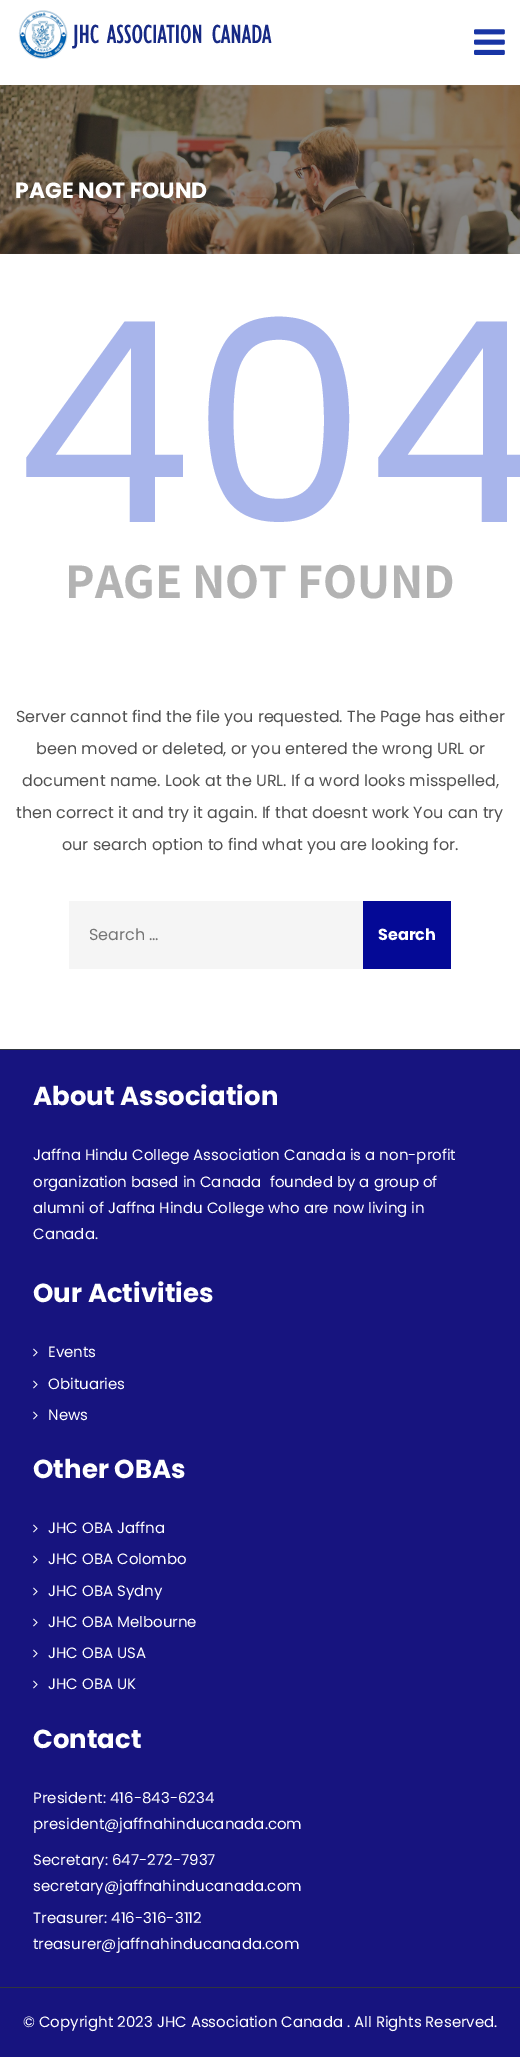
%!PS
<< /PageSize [520 2067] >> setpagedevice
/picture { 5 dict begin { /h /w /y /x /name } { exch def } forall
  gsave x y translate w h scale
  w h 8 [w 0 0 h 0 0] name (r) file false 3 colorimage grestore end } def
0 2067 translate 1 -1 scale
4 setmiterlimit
1 setgray
0 0 520 2067 rectfill
(img1.rgb) 18 10 254 49 picture
(img2.rgb) 474 29 31 26 picture
(img3.rgb) 0 85 520 169 picture
/Poppins-Bold [22 0 0 -22 0 0] selectfont
15 198 moveto (PAGE NOT FOUND) show
/Poppins-Regular [280 0 0 -280 0 0] selectfont
0.659 0.71 0.922 setrgbcolor
15 522 moveto (404) show
/Assistant-ExtraLight [50 0 0 -50 0 0] selectfont
0.702 setgray
65 598 moveto (PAGE NOT FOUND) show
/Poppins-Regular [16 0 0 -16 0 0] selectfont
0.318 setgray
16 722 moveto (Server cannot find the file you requested. The Page has either) show
36 754 moveto (been moved or deleted, or you entered the wrong URL or) show
22 786 moveto (document name. Look at the URL. If a word looks misspelled,) show
16 818 moveto (then correct it and try it again. If that doesnt work You can try) show
62 850 moveto (our search option to find what you are looking for.) show
0.961 setgray
69 901 294 68 rectfill
0.459 setgray
89 940 moveto (Search …) show
0.016 0.035 0.588 setrgbcolor
363 901 88 68 rectfill
/Poppins-Bold [16 0 0 -16 0 0] selectfont
1 setgray
378 940 moveto (Search) show
0.09 0.078 0.498 setrgbcolor
0 1050 520 1007 rectfill
0.192 0.212 0.239 setrgbcolor
0 1049 520 1 rectfill
0 1987 520 1 rectfill
/Poppins-Bold [26 0 0 -26 0 0] selectfont
1 setgray
33 1105 moveto (About Association) show
/Poppins-Regular [15 0 0 -15 0 0] selectfont
33 1160 moveto (Jaffna Hindu College Association Canada is a non-profit) show
33 1187 moveto (organization based in Canada  founded by a group of) show
33 1213 moveto (alumni of Jaffna Hindu College who are now living in) show
33 1239 moveto (Canada.) show
/Poppins-Bold [26 0 0 -26 0 0] selectfont
33 1302 moveto (Our Activities) show
(img4.rgb) 33 1348 5 9 picture
/Poppins-Regular [15 0 0 -15 0 0] selectfont
48 1357 moveto (Events) show
(img4.rgb) 33 1380 5 9 picture
48 1389 moveto (Obituaries) show
(img4.rgb) 33 1411 5 9 picture
48 1420 moveto (News) show
/Poppins-Bold [26 0 0 -26 0 0] selectfont
33 1478 moveto (Other OBAs) show
(img4.rgb) 33 1524 5 9 picture
/Poppins-Regular [15 0 0 -15 0 0] selectfont
48 1533 moveto (JHC OBA Jaffna) show
(img4.rgb) 33 1555 5 9 picture
48 1564 moveto (JHC OBA Colombo) show
(img4.rgb) 33 1587 5 9 picture
48 1596 moveto (JHC OBA Sydny) show
(img4.rgb) 33 1618 5 9 picture
48 1627 moveto (JHC OBA Melbourne) show
(img4.rgb) 33 1649 5 9 picture
48 1658 moveto (JHC OBA USA) show
(img4.rgb) 33 1680 5 9 picture
48 1689 moveto (JHC OBA UK) show
/Poppins-Bold [26 0 0 -26 0 0] selectfont
33 1748 moveto (Contact) show
/Poppins-Regular [15 0 0 -15 0 0] selectfont
33 1803 moveto (President: 416-843-6234) show
33 1829 moveto (president@jaffnahinducanada.com) show
33 1865 moveto (Secretary: 647-272-7937) show
33 1891 moveto (secretary@jaffnahinducanada.com) show
33 1923 moveto (Treasurer: 416-316-3112) show
33 1949 moveto (treasurer@jaffnahinducanada.com) show
23 2027 moveto (© Copyright 2023 JHC Association Canada . All Rights Reserved.) show
showpage
